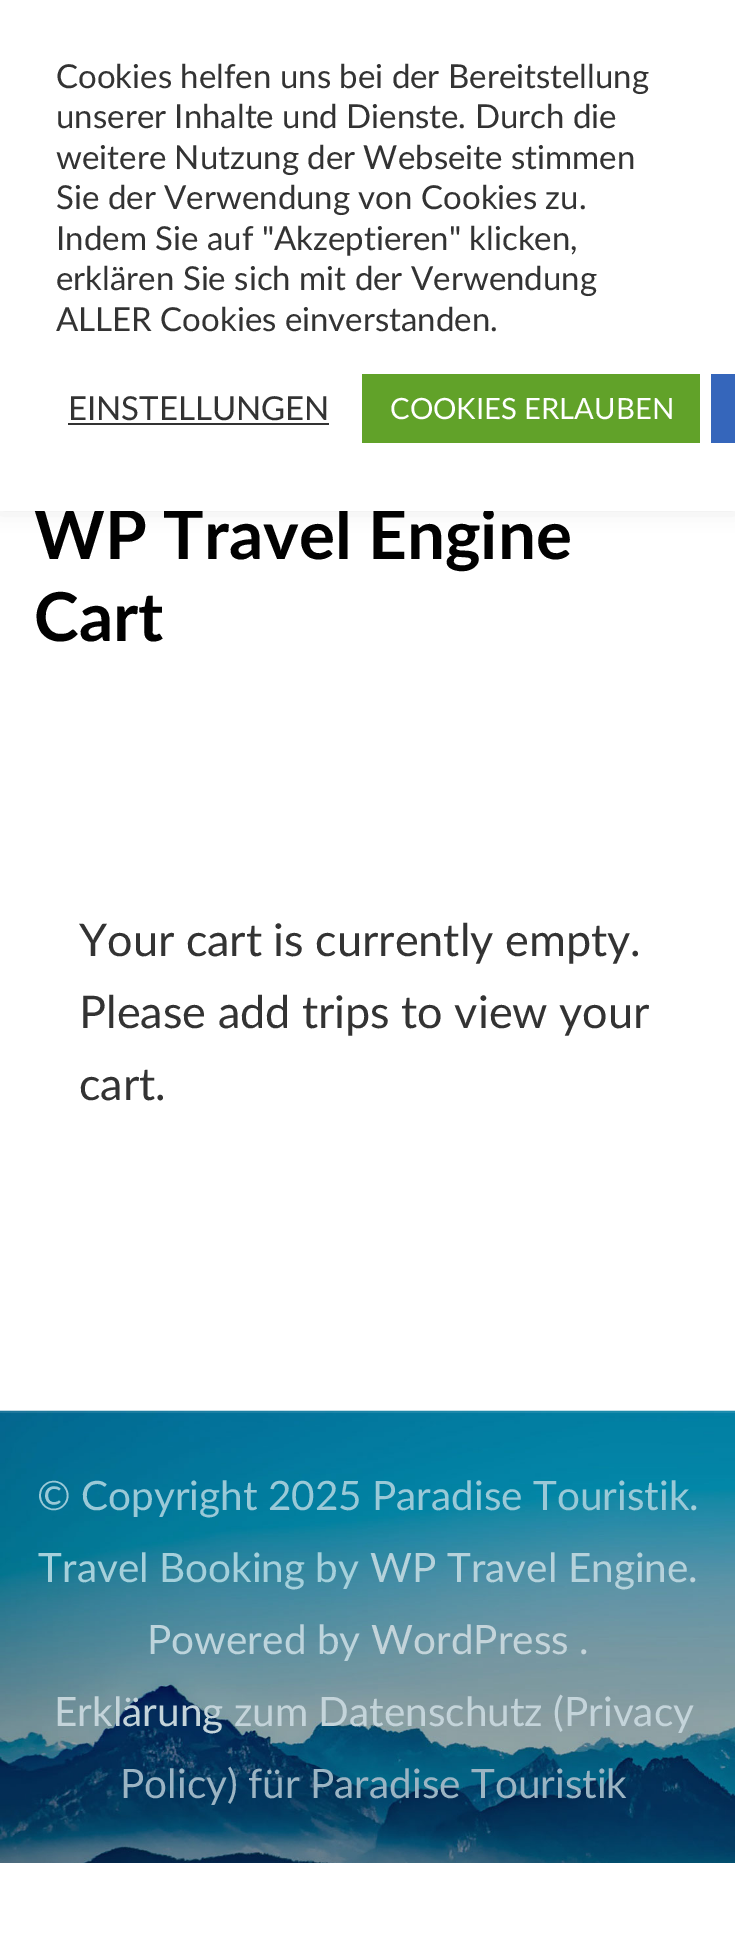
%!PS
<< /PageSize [735 1952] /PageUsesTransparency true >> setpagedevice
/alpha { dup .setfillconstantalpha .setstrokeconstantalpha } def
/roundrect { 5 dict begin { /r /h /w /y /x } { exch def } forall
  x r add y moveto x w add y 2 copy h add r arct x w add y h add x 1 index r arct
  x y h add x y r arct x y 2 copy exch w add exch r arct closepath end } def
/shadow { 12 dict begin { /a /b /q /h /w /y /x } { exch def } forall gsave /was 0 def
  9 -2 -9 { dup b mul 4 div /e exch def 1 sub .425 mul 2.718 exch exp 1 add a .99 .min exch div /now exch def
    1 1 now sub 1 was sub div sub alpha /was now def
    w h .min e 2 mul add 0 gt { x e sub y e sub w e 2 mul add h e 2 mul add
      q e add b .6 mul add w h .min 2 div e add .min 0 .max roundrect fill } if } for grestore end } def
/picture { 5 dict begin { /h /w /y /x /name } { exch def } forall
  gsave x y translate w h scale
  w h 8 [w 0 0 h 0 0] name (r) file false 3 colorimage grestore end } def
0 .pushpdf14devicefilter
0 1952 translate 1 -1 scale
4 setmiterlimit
1 setgray
0 0 735 1952 rectfill
0.675 0.671 0.671 setrgbcolor
0 -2 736 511 0 11 0.3 shadow
/Lato-Bold [67.5 0 0 -67.5 0 0] selectfont
0.004 setgray
34 559 moveto (WP Travel Engine) show
1 setgray
0 0 735 511 rectfill
/Lato-Regular [33 0 0 -33 0 0] selectfont
0.2 setgray
56 88 moveto (Cookies helfen uns bei der Bereitstellung) show
56 128 moveto (unserer Inhalte und Dienste. Durch die) show
56 169 moveto (weitere Nutzung der Webseite stimmen) show
56 209 moveto (Sie der Verwendung von Cookies zu.) show
56 250 moveto (Indem Sie auf "Akzeptieren" klicken,) show
56 290 moveto (erklären Sie sich mit der Verwendung) show
56 331 moveto (ALLER Cookies einverstanden.) show
68 420 moveto (EINSTELLUNGEN) show
68 423 261 2 rectfill
0.38 0.635 0.161 setrgbcolor
362 374 338 69 rectfill
/Lato-Regular [29.25 0 0 -29.25 0 0] selectfont
1 setgray
390 419 moveto (COOKIES ERLAUBEN) show
0.208 0.4 0.733 setrgbcolor
711 374 24 69 rectfill
/Lato-Bold [67.5 0 0 -67.5 0 0] selectfont
0.004 setgray
34 641 moveto (Cart) show
/Lato-Regular [45 0 0 -45 0 0] selectfont
0.2 setgray
79 956 moveto (Your cart is currently empty.) show
79 1028 moveto (Please add trips to view your) show
79 1100 moveto (cart.) show
(img1.rgb) 0 1410 735 453 picture
0.1 alpha
1 setgray
0 1411 735 2 rectfill
/Lato-Regular [40.5 0 0 -40.5 0 0] selectfont
1 alpha
0.604 0.788 0.843 setrgbcolor
37 1510 moveto (© Copyright 2025) show
372 1510 moveto (Paradise Touristik) show
0.647 0.816 0.859 setrgbcolor
689 1510 moveto (.) show
38 1582 moveto (Travel Booking by) show
0.714 0.824 0.859 setrgbcolor
370 1582 moveto (WP Travel Engine) show
0.741 0.831 0.863 setrgbcolor
688 1582 moveto (.) show
147 1654 moveto (Powered by) show
0.769 0.831 0.855 setrgbcolor
371 1654 moveto (WordPress) show
579 1654 moveto (.) show
54 1726 moveto (Erklärung zum Datenschutz \(Privacy) show
0.608 0.706 0.765 setrgbcolor
120 1798 moveto (Policy\) für Paradise Touristik) show
.poppdf14devicefilter showpage
